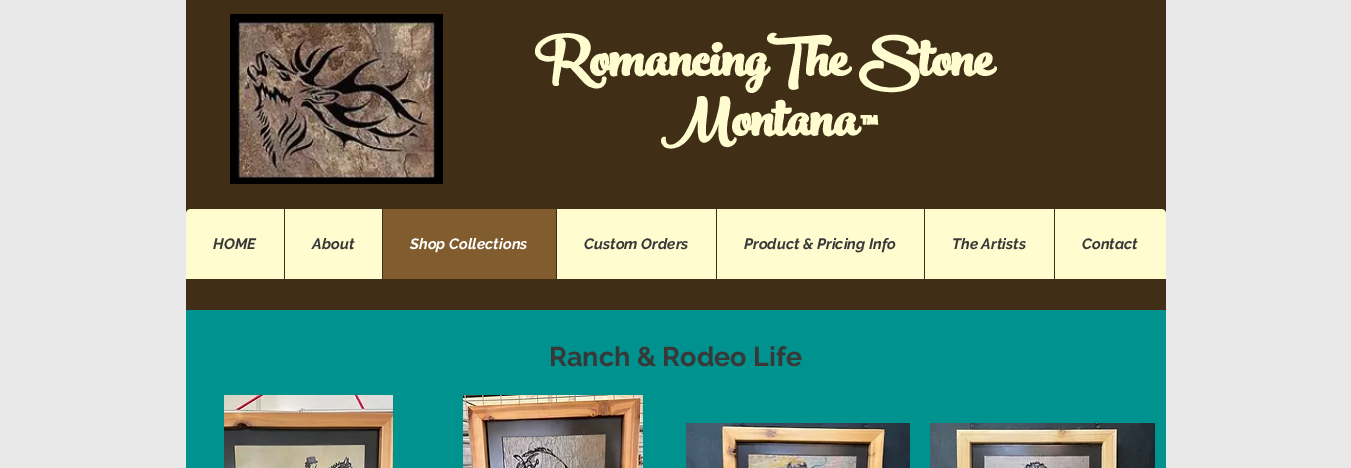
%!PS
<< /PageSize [1351 468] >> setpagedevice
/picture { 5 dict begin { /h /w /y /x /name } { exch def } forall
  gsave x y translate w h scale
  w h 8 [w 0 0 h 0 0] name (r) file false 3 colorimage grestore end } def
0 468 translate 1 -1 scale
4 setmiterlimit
0.914 setgray
0 0 1351 468 rectfill
0.251 0.18 0.09 setrgbcolor
186 0 980 310 rectfill
0 setgray
230 14 213 170 rectfill
(img1.rgb) 235 19 203 160 picture
/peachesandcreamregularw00-Bold [80 0 0 -80 0 0] selectfont
1 0.992 0.816 setrgbcolor
535 76 moveto 0.75 0 (RomancingThe Stone) ashow
661 136 moveto 0.75 0 (Montana™) ashow
newpath 191 209 moveto 1161 209 lineto 1164 209 1166 211 1166 214 curveto 1166 279 lineto 186 279 lineto 186 214 lineto 186 211 188 209 191 209 curveto closepath fill
/Raleway-BoldItalic [15 0 0 -15 0 0] selectfont
0.22 setgray
213 249 moveto (HOME) show
0.251 0.18 0.09 setrgbcolor
284 209 1 70 rectfill
0.22 setgray
312 249 moveto (About) show
0.502 0.361 0.18 setrgbcolor
383 209 173 70 rectfill
0.251 0.18 0.09 setrgbcolor
382 209 1 70 rectfill
1 setgray
410 249 moveto (Shop Collections) show
0.251 0.18 0.09 setrgbcolor
556 209 1 70 rectfill
0.22 setgray
584 249 moveto (Custom Orders) show
0.251 0.18 0.09 setrgbcolor
716 209 1 70 rectfill
0.22 setgray
744 249 moveto (Product & Pricing Info) show
0.251 0.18 0.09 setrgbcolor
924 209 1 70 rectfill
0.22 setgray
952 249 moveto (The Artists) show
0.251 0.18 0.09 setrgbcolor
1054 209 1 70 rectfill
0.22 setgray
1082 249 moveto (Contact) show
0 0.573 0.561 setrgbcolor
186 310 980 158 rectfill
/Raleway-Bold [27 0 0 -27 0 0] selectfont
0.22 setgray
549 366 moveto (Ranch & Rodeo Life) show
(img2.rgb) 224 395 169 73 picture
(img3.rgb) 463 395 180 73 picture
(img4.rgb) 686 423 224 45 picture
(img5.rgb) 930 423 225 45 picture
showpage
